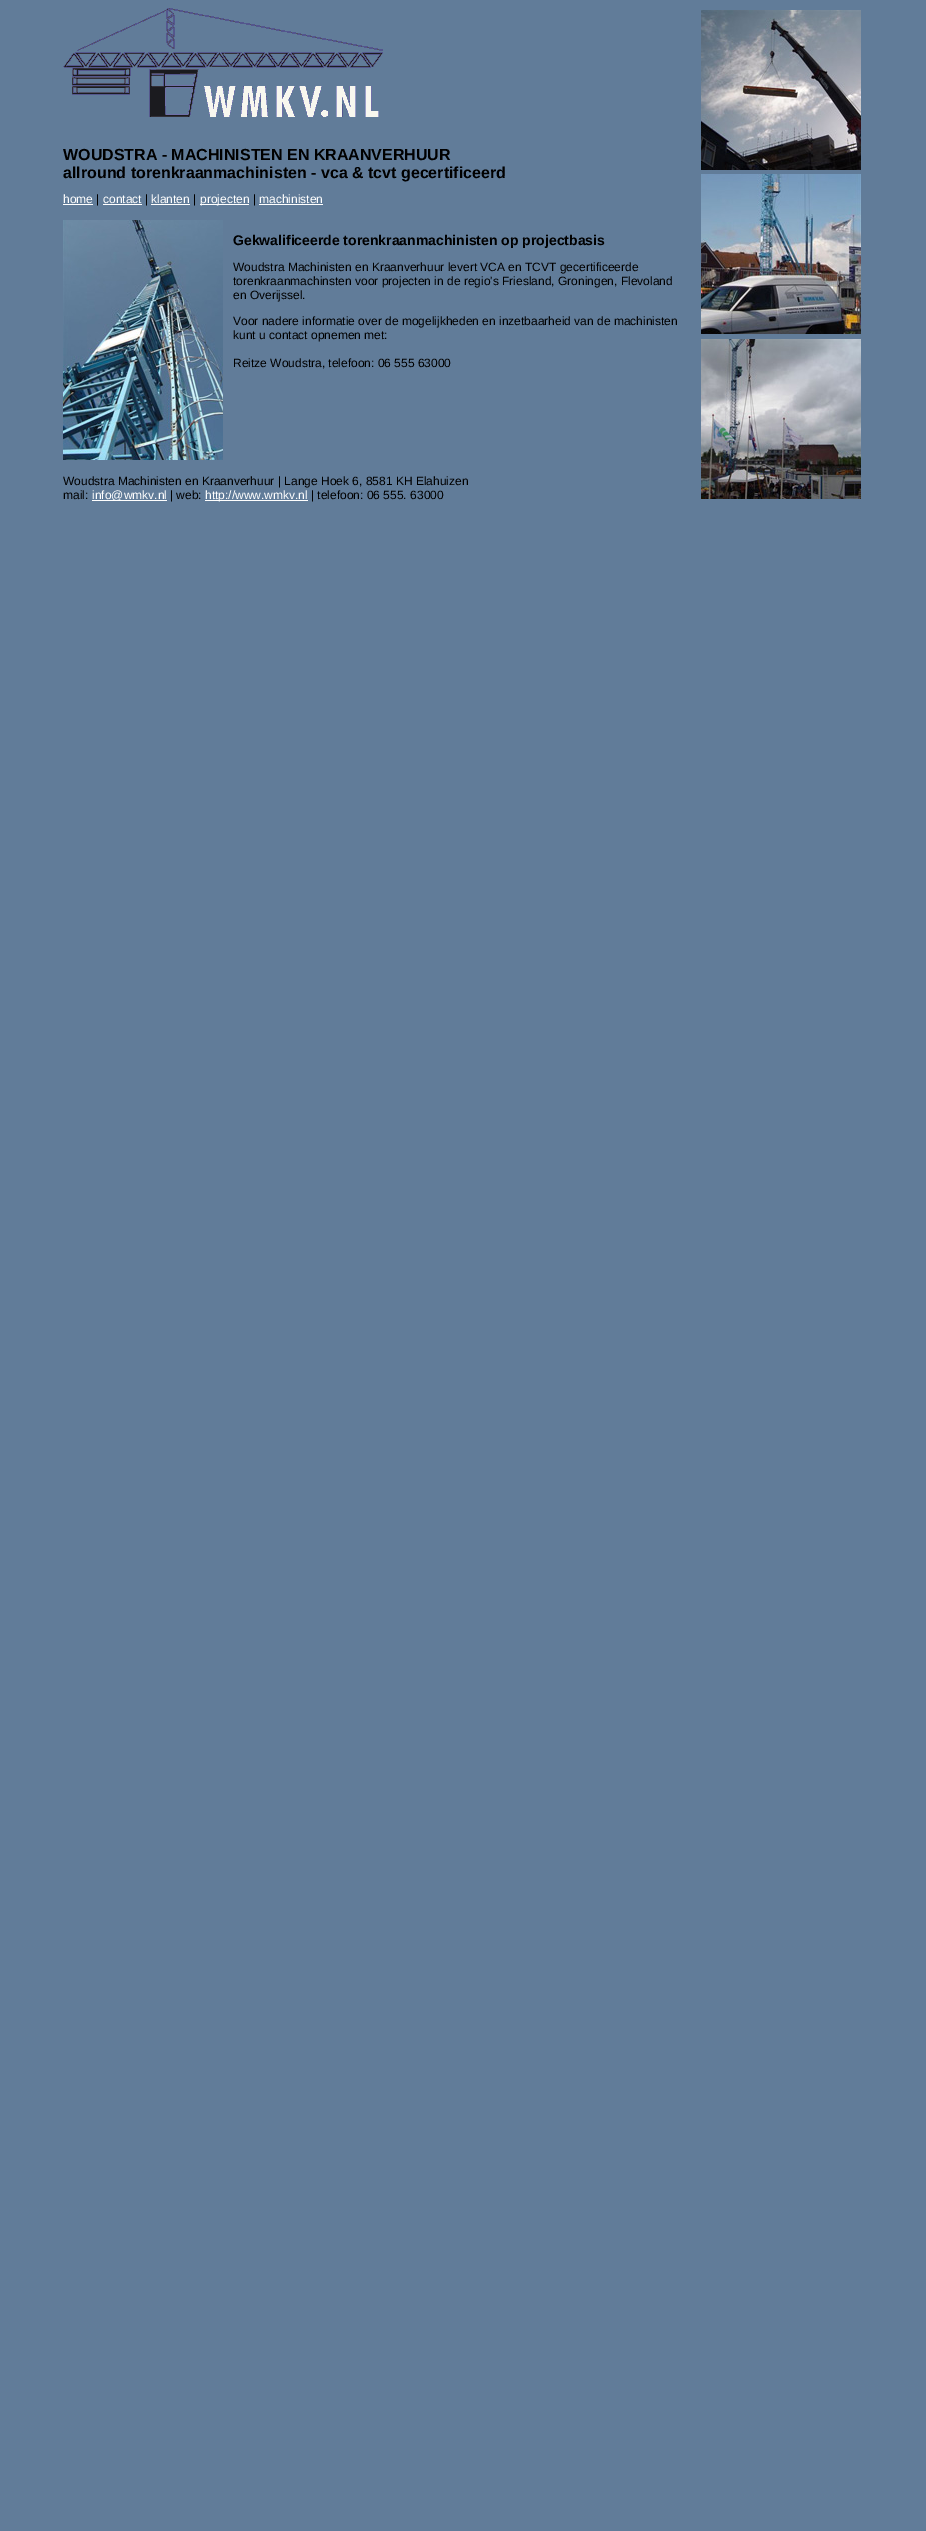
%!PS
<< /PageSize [926 2531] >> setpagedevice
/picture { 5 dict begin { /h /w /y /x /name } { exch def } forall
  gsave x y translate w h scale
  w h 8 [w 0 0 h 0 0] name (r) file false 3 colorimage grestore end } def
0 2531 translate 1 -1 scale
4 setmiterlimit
0.38 0.486 0.6 setrgbcolor
0 0 926 2531 rectfill
(img1.rgb) 701 10 160 160 picture
(img2.rgb) 63 8 320 109 picture
/LiberationSans-Bold [16 0 0 -16 0 0] selectfont
0 setgray
63 160 moveto (WOUDSTRA - MACHINISTEN EN KRAANVERHUUR) show
63 178 moveto (allround torenkraanmachinisten - vca & tcvt gecertificeerd) show
/LiberationSans-Regular [12 0 0 -12 0 0] selectfont
1 setgray
63 203 moveto (home) show
63 204 30 1 rectfill
0 setgray
96 203 moveto (|) show
1 setgray
103 203 moveto (contact) show
103 204 39 1 rectfill
0 setgray
145 203 moveto (|) show
1 setgray
151 203 moveto (klanten) show
151 204 39 1 rectfill
0 setgray
193 203 moveto (|) show
1 setgray
200 204 49 1 rectfill
200 203 moveto (projecten) show
0 setgray
253 203 moveto (|) show
1 setgray
259 203 moveto (machinisten) show
259 204 64 1 rectfill
(img3.rgb) 63 220 160 240 picture
/LiberationSans-Bold [14 0 0 -14 0 0] selectfont
0 setgray
233 245 moveto (Gekwalificeerde torenkraanmachinisten op projectbasis) show
/LiberationSans-Regular [12 0 0 -12 0 0] selectfont
233 271 moveto (Woudstra Machinisten en Kraanverhuur levert VCA en TCVT gecertificeerde) show
233 285 moveto (torenkraanmachinsten voor projecten in de regio's Friesland, Groningen, Flevoland) show
233 299 moveto (en Overijssel.) show
233 325 moveto (Voor nadere informatie over de mogelijkheden en inzetbaarheid van de machinisten) show
233 339 moveto (kunt u contact opnemen met:) show
233 367 moveto (Reitze Woudstra, telefoon: 06 555 63000) show
63 485 moveto (Woudstra Machinisten en Kraanverhuur | Lange Hoek 6, 8581 KH Elahuizen) show
63 499 moveto (mail:) show
1 setgray
92 500 75 1 rectfill
92 499 moveto (info@wmkv.nl) show
0 setgray
170 499 moveto (| web:) show
1 setgray
205 500 103 1 rectfill
205 499 moveto (http://www.wmkv.nl) show
0 setgray
311 499 moveto (| telefoon: 06 555. 63000) show
(img4.rgb) 701 174 160 160 picture
(img5.rgb) 701 339 160 160 picture
showpage
